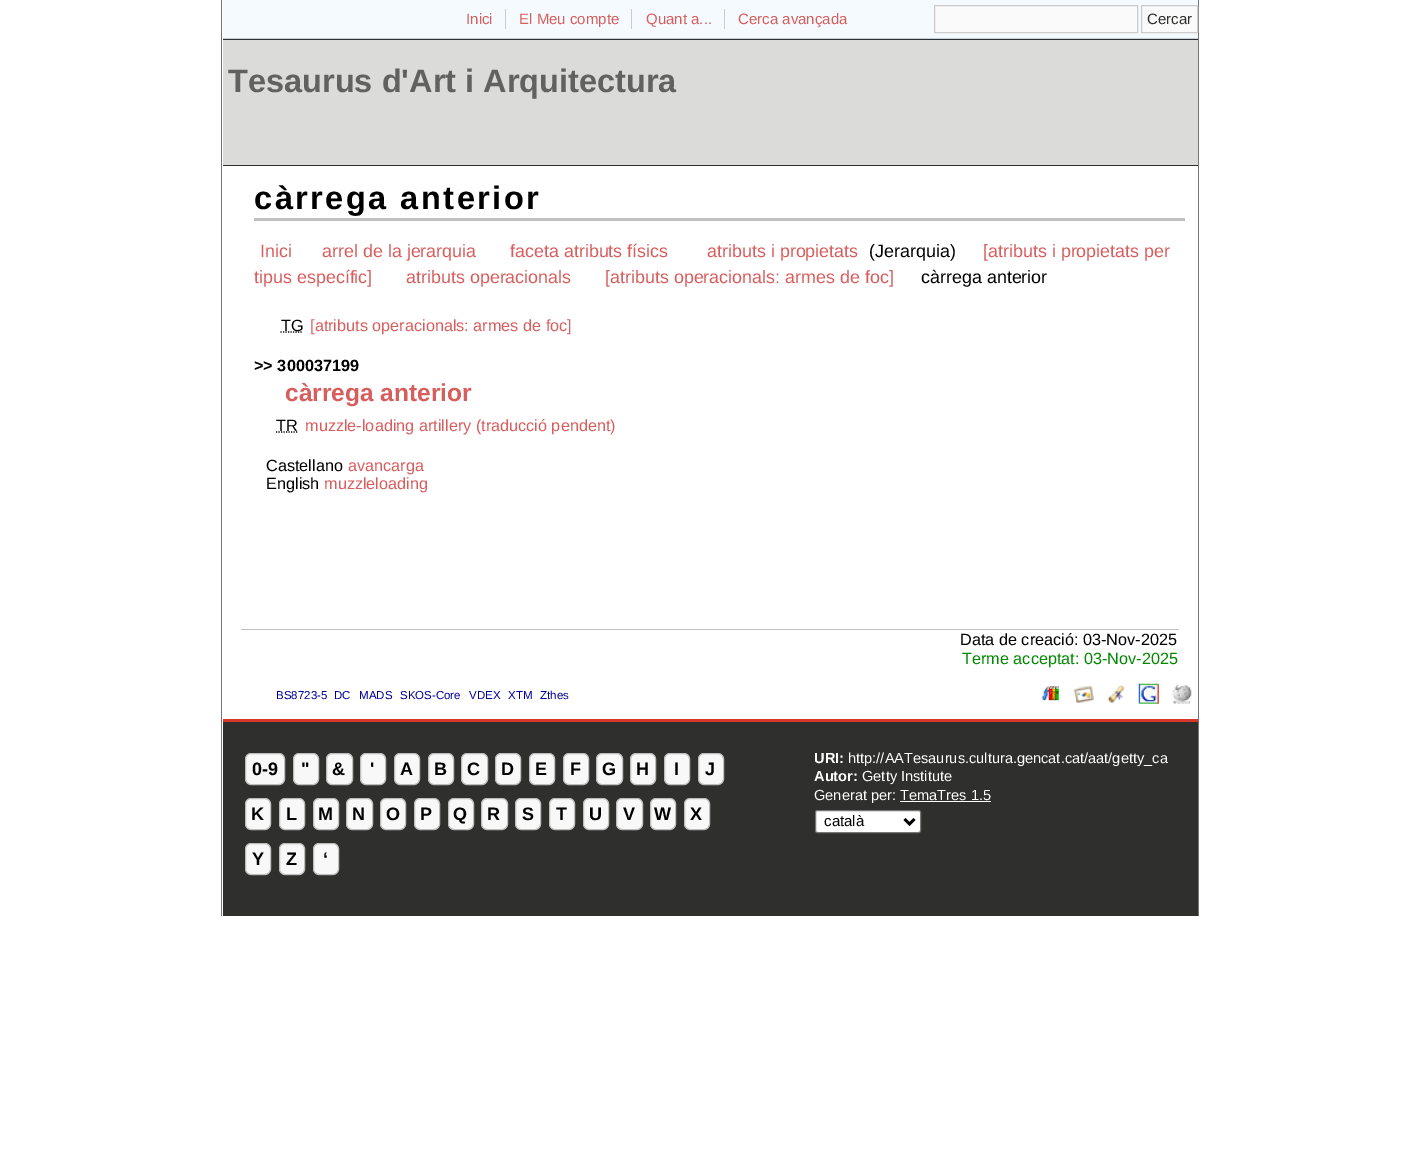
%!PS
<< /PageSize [1418 1158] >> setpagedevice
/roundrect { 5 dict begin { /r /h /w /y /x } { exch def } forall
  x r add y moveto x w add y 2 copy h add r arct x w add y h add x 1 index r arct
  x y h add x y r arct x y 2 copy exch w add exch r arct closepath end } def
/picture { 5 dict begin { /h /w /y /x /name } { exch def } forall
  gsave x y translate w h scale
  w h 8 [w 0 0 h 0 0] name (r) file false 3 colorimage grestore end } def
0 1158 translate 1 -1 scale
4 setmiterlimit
1 setgray
0 0 1418 1158 rectfill
0.459 setgray
1198 0 1 916 rectfill
221 0 1 916 rectfill
0.957 0.98 0.996 setrgbcolor
223 0 975 38 rectfill
0.753 0.82 0.859 setrgbcolor
223 38 975 1 rectfill
/LiberationSans-Regular [15 0 0 -15 0 0] selectfont
0.847 0.365 0.365 setrgbcolor
466 24 moveto (Inici) show
519 24 moveto (El Meu compte) show
0.8 setgray
505 9 1 20 rectfill
0.847 0.365 0.365 setrgbcolor
646 24 moveto (Quant a...) show
0.8 setgray
631 9 1 20 rectfill
0.847 0.365 0.365 setrgbcolor
738 24 moveto (Cerca avançada) show
0.8 setgray
724 9 1 20 rectfill
0.98 setgray
newpath 934.5 5.5 moveto 1137.5 5.5 lineto 1137.5 32.5 lineto 934.5 32.5 lineto closepath gsave fill grestore
0.8 setgray
stroke
0.98 setgray
newpath 1141.5 5.5 moveto 1197.5 5.5 lineto 1197.5 32.5 lineto 1141.5 32.5 lineto closepath gsave fill grestore
0.8 setgray
stroke
0.184 0.184 0.18 setrgbcolor
1147 24 moveto (Cercar) show
0.859 0.859 0.851 setrgbcolor
223 40 975 125 rectfill
0.184 0.184 0.18 setrgbcolor
223 39 975 1 rectfill
223 165 975 1 rectfill
/LiberationSans-Bold [32.5 0 0 -32.5 0 0] selectfont
0.38 setgray
228 92 moveto (Tesaurus d'Art i Arquitectura) show
0.753 setgray
254 218 931 3 rectfill
0 setgray
254 209 moveto 2.5 0 (càrrega anterior) ashow
/LiberationSans-Regular [17.9 0 0 -17.9 0 0] selectfont
0.847 0.365 0.365 setrgbcolor
260 257 moveto (Inici) show
322 257 moveto (arrel de la jerarquia) show
510 257 moveto (faceta atributs físics) show
707 257 moveto (atributs i propietats) show
0 setgray
869 257 moveto (\(Jerarquia\)) show
0.847 0.365 0.365 setrgbcolor
983 257 moveto ([atributs i propietats per) show
254 283 moveto (tipus específic]) show
406 283 moveto (atributs operacionals) show
605 283 moveto ([atributs operacionals: armes de foc]) show
0 setgray
921 283 moveto (càrrega anterior) show
1.2 setlinewidth
[1.25 1.25] 0 setdash
newpath 280.5 332 moveto 303 332 lineto stroke
/LiberationSans-Regular [16.25 0 0 -16.25 0 0] selectfont
281 331 moveto (TG) show
0.847 0.365 0.365 setrgbcolor
310 331 moveto ([atributs operacionals: armes de foc]) show
/LiberationSans-Bold [16.25 0 0 -16.25 0 0] selectfont
0 setgray
254 371 moveto (>> 300037199) show
/LiberationSans-Bold [24.5 0 0 -24.5 0 0] selectfont
0.847 0.365 0.365 setrgbcolor
285 401 moveto (càrrega anterior) show
/LiberationSans-Regular [16.25 0 0 -16.25 0 0] selectfont
0 setgray
276 431 moveto (TR) show
newpath 276 432 moveto 297.5 432 lineto stroke
0.847 0.365 0.365 setrgbcolor
305 431 moveto (muzzle-loading artillery \(traducció pendent\)) show
0 setgray
266 471 moveto (Castellano) show
0.847 0.365 0.365 setrgbcolor
348 471 moveto (avancarga) show
0 setgray
266 489 moveto (English) show
0.847 0.365 0.365 setrgbcolor
324 489 moveto (muzzleloading) show
0.753 setgray
241 629 938 1 rectfill
0 setgray
960 645 moveto (Data de creació: 03-Nov-2025) show
0 0.533 0 setrgbcolor
962 664 moveto (Terme acceptat: 03-Nov-2025) show
/LiberationSans-Regular [11.5 0 0 -11.5 0 0] selectfont
0 0 0.6 setrgbcolor
276 699 moveto (BS8723-5) show
334 699 moveto (DC) show
359 699 moveto (MADS) show
400 699 moveto (SKOS-Core) show
469 699 moveto (VDEX) show
508 699 moveto (XTM) show
540 699 moveto (Zthes) show
(img1.rgb) 1041 686 18 15 picture
(img2.rgb) 1073 686 21 17 picture
(img3.rgb) 1107 685 18 18 picture
(img4.rgb) 1138 683 21 21 picture
(img5.rgb) 1171 684 21 20 picture
0.184 0.184 0.18 setrgbcolor
223 722 975 194 rectfill
0.843 0.216 0.165 setrgbcolor
223 719 975 3 rectfill
0.973 setgray
245.5 753.5 39 31 5.5 roundrect gsave fill grestore
0.741 setgray
1 setlinewidth
[] 0 setdash
stroke
/LiberationSans-Bold [18 0 0 -18 0 0] selectfont
0 setgray
252 775 moveto (0-9) show
0.973 setgray
293.5 753.5 25 31 5.5 roundrect gsave fill grestore
0.741 setgray
stroke
0 setgray
301 775 moveto (") show
0.973 setgray
326.5 753.5 26 31 5.5 roundrect gsave fill grestore
0.741 setgray
stroke
0 setgray
332 775 moveto (&) show
0.973 setgray
360.5 753.5 25 31 5.5 roundrect gsave fill grestore
0.741 setgray
stroke
0 setgray
370 775 moveto (') show
0.973 setgray
394.5 753.5 25 31 5.5 roundrect gsave fill grestore
0.741 setgray
stroke
0 setgray
400 775 moveto (A) show
0.973 setgray
428.5 753.5 25 31 5.5 roundrect gsave fill grestore
0.741 setgray
stroke
0 setgray
434 775 moveto (B) show
0.973 setgray
461.5 753.5 26 31 5.5 roundrect gsave fill grestore
0.741 setgray
stroke
0 setgray
467 775 moveto (C) show
0.973 setgray
495.5 753.5 25 31 5.5 roundrect gsave fill grestore
0.741 setgray
stroke
0 setgray
501 775 moveto (D) show
0.973 setgray
529.5 753.5 25 31 5.5 roundrect gsave fill grestore
0.741 setgray
stroke
0 setgray
535 775 moveto (E) show
0.973 setgray
563.5 753.5 25 31 5.5 roundrect gsave fill grestore
0.741 setgray
stroke
0 setgray
570 775 moveto (F) show
0.973 setgray
596.5 753.5 26 31 5.5 roundrect gsave fill grestore
0.741 setgray
stroke
0 setgray
602 775 moveto (G) show
0.973 setgray
630.5 753.5 25 31 5.5 roundrect gsave fill grestore
0.741 setgray
stroke
0 setgray
636 775 moveto (H) show
0.973 setgray
664.5 753.5 25 31 5.5 roundrect gsave fill grestore
0.741 setgray
stroke
0 setgray
674 775 moveto (I) show
0.973 setgray
698.5 753.5 25 31 5.5 roundrect gsave fill grestore
0.741 setgray
stroke
0 setgray
705 775 moveto (J) show
0.973 setgray
245.5 798.5 25 31 5.5 roundrect gsave fill grestore
0.741 setgray
stroke
0 setgray
251 820 moveto (K) show
0.973 setgray
279.5 798.5 25 31 5.5 roundrect gsave fill grestore
0.741 setgray
stroke
0 setgray
286 820 moveto (L) show
0.973 setgray
313.5 798.5 25 31 5.5 roundrect gsave fill grestore
0.741 setgray
stroke
0 setgray
318 820 moveto (M) show
0.973 setgray
346.5 798.5 26 31 5.5 roundrect gsave fill grestore
0.741 setgray
stroke
0 setgray
352 820 moveto (N) show
0.973 setgray
380.5 798.5 25 31 5.5 roundrect gsave fill grestore
0.741 setgray
stroke
0 setgray
386 820 moveto (O) show
0.973 setgray
414.5 798.5 25 31 5.5 roundrect gsave fill grestore
0.741 setgray
stroke
0 setgray
420 820 moveto (P) show
0.973 setgray
448.5 798.5 25 31 5.5 roundrect gsave fill grestore
0.741 setgray
stroke
0 setgray
453 820 moveto (Q) show
0.973 setgray
481.5 798.5 26 31 5.5 roundrect gsave fill grestore
0.741 setgray
stroke
0 setgray
487 820 moveto (R) show
0.973 setgray
515.5 798.5 25 31 5.5 roundrect gsave fill grestore
0.741 setgray
stroke
0 setgray
522 820 moveto (S) show
0.973 setgray
549.5 798.5 25 31 5.5 roundrect gsave fill grestore
0.741 setgray
stroke
0 setgray
556 820 moveto (T) show
0.973 setgray
583.5 798.5 25 31 5.5 roundrect gsave fill grestore
0.741 setgray
stroke
0 setgray
589 820 moveto (U) show
0.973 setgray
616.5 798.5 26 31 5.5 roundrect gsave fill grestore
0.741 setgray
stroke
0 setgray
623 820 moveto (V) show
0.973 setgray
650.5 798.5 25 31 5.5 roundrect gsave fill grestore
0.741 setgray
stroke
0 setgray
654 820 moveto (W) show
0.973 setgray
684.5 798.5 25 31 5.5 roundrect gsave fill grestore
0.741 setgray
stroke
0 setgray
690 820 moveto (X) show
0.973 setgray
245.5 843.5 25 31 5.5 roundrect gsave fill grestore
0.741 setgray
stroke
0 setgray
252 865 moveto (Y) show
0.973 setgray
279.5 843.5 25 31 5.5 roundrect gsave fill grestore
0.741 setgray
stroke
0 setgray
286 865 moveto (Z) show
0.973 setgray
313.5 843.5 25 31 5.5 roundrect gsave fill grestore
0.741 setgray
stroke
0 setgray
323 865 moveto (ʻ) show
/LiberationSans-Bold [14.6 0 0 -14.6 0 0] selectfont
1 setgray
814 763 moveto (URI:) show
/LiberationSans-Regular [14.6 0 0 -14.6 0 0] selectfont
848 763 moveto (http://AATesaurus.cultura.gencat.cat/aat/getty_ca) show
/LiberationSans-Bold [14.6 0 0 -14.6 0 0] selectfont
814 781 moveto (Autor:) show
/LiberationSans-Regular [14.6 0 0 -14.6 0 0] selectfont
862 781 moveto (Getty Institute) show
814 800 moveto (Generat per: TemaTres 1.5) show
900 801 91 1 rectfill
815.5 810.5 105 22 2 roundrect gsave fill grestore
0.463 setgray
stroke
0 setgray
2.5 setlinewidth
newpath 904.5 819 moveto 909.5 824 lineto 914.5 819 lineto stroke
/LiberationSans-Regular [15 0 0 -15 0 0] selectfont
824 826 moveto (català) show
showpage
